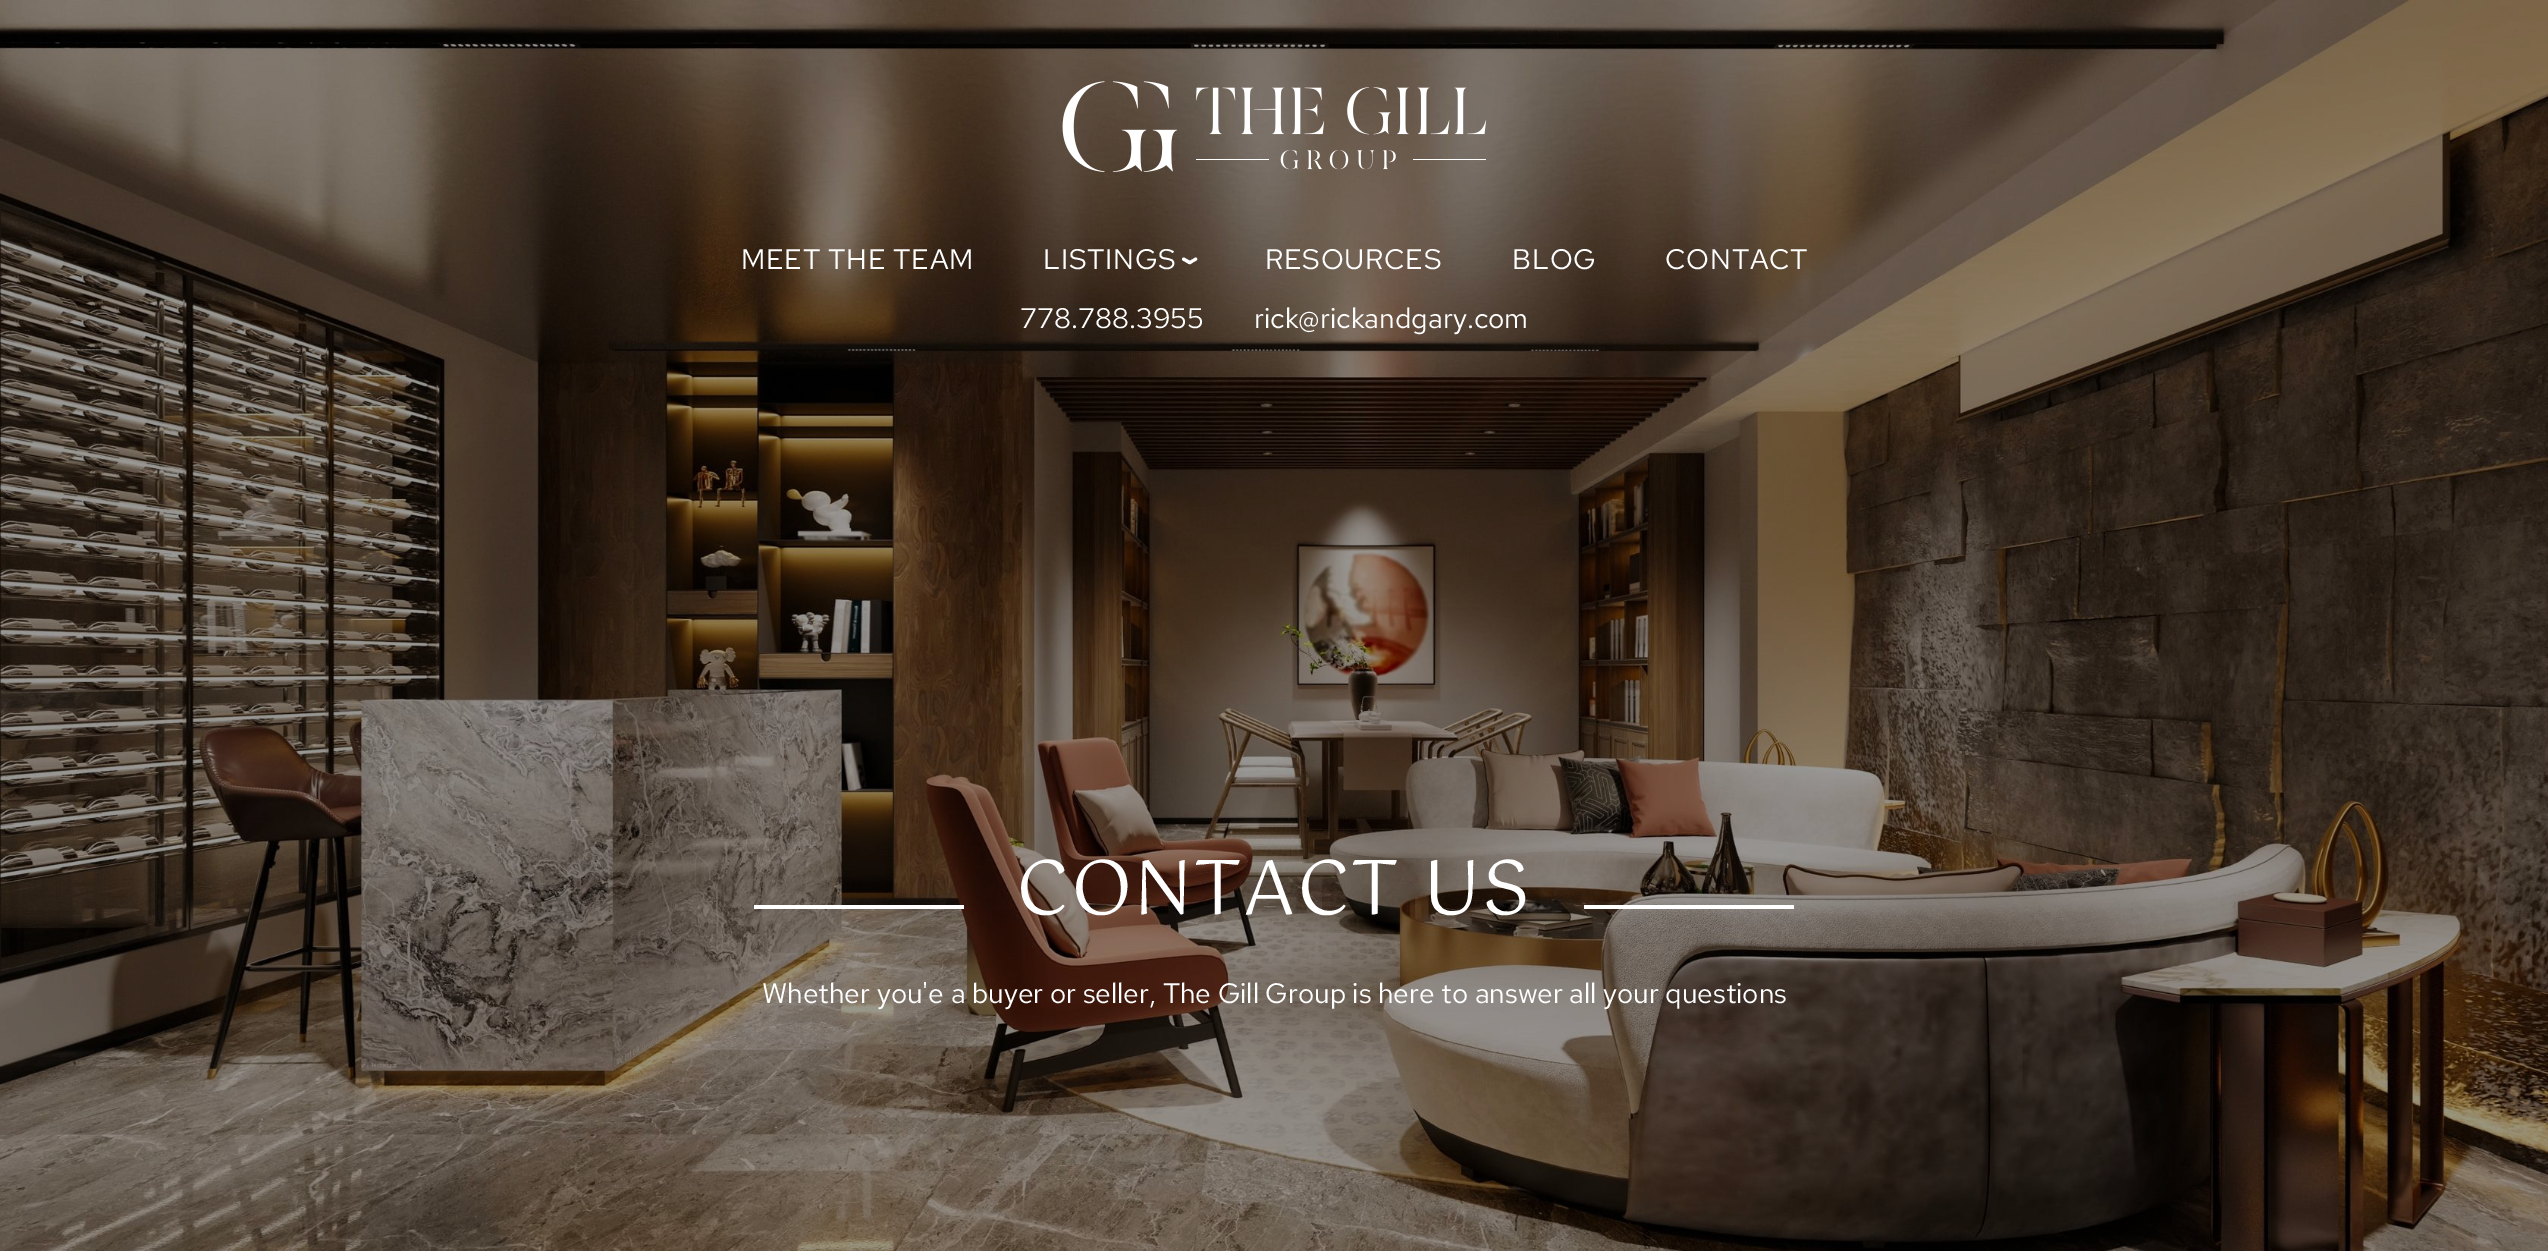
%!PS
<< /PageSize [2548 1251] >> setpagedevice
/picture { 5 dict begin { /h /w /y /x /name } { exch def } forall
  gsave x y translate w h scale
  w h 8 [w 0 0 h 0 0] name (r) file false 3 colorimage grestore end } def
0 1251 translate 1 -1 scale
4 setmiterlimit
1 setgray
0 0 2548 1251 rectfill
(img2.rgb) 0 0 2548 1251 picture
(img1.rgb) 1062 81 425 91 picture
/RedHatText-Regular [28.25 0 0 -28.25 0 0] selectfont
741 269 moveto 0.75 0 (MEET THE TEAM) ashow
1043 269 moveto 0.75 0 (LISTINGS) ashow
newpath 1188.5 261.5 moveto 1193 259 lineto 1194.5 258 1196 256.5 1197 258.5 curveto 1198 260.5 1194.5 261.5 1193.5 262 curveto 1191.5 263.5 1189.5 265.5 1188 263 curveto 1188 262.5 1188 261.5 1188.5 261.5 curveto closepath fill
newpath 1184 257.5 moveto 1188.5 260 lineto 1190 261 1192 261.5 1190.5 263.5 curveto 1189.5 265 1186.5 262.5 1185.5 262 curveto 1184 261 1181 260.5 1182.5 258 curveto 1183 257.5 1183.5 257.5 1184 257.5 curveto closepath fill
1265 269 moveto 0.75 0 (RESOURCES) ashow
1512 269 moveto 0.75 0 (BLOG) ashow
1665 269 moveto 0.75 0 (CONTACT) ashow
1020 328 moveto (778.788.3955) show
1254 328 moveto (rick@rickandgary.com) show
754 905 210 4 rectfill
/Gotu-Regular [75 0 0 -75 0 0] selectfont
1016 914 moveto 2 0 (CONTACT US) ashow
1584 905 210 4 rectfill
/RedHatText-Regular [28.1 0 0 -28.1 0 0] selectfont
762 1003 moveto (Whether you'e a buyer or seller, The Gill Group is here to answer all your questions) show
showpage
